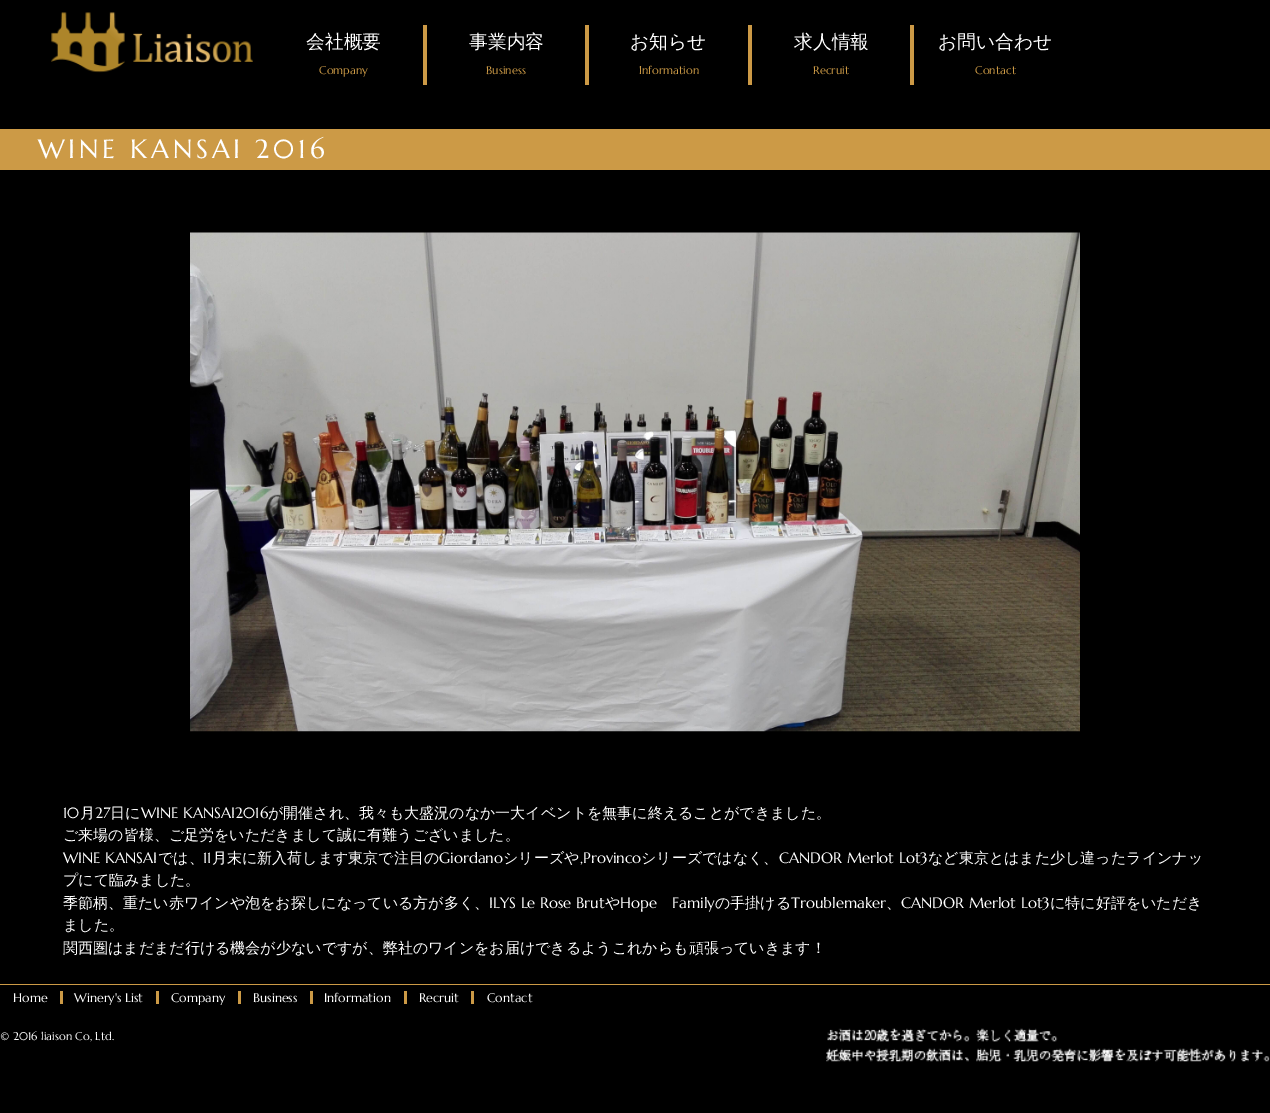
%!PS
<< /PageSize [1270 1113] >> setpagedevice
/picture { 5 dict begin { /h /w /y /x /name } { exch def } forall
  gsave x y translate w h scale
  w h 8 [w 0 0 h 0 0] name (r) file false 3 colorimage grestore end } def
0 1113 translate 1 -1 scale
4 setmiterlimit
0 setgray
0 0 1270 1113 rectfill
(img1.rgb) 51 12 202 61 picture
0.8 0.604 0.275 setrgbcolor
423 25 4 60 rectfill
/WenQuanYiZenHei-Medium [18.75 0 0 -18.75 0 0] selectfont
1 setgray
306 48 moveto (会社概要) show
/Marcellus-Regular [11.25 0 0 -11.25 0 0] selectfont
0.8 0.604 0.275 setrgbcolor
319 74 moveto (Company) show
585 25 4 60 rectfill
/WenQuanYiZenHei-Medium [18.75 0 0 -18.75 0 0] selectfont
1 setgray
469 48 moveto (事業内容) show
/Marcellus-Regular [11.25 0 0 -11.25 0 0] selectfont
0.8 0.604 0.275 setrgbcolor
486 74 moveto (Business) show
748 25 4 60 rectfill
/WenQuanYiZenHei-Medium [18.75 0 0 -18.75 0 0] selectfont
1 setgray
630 48 moveto (お知らせ) show
/Marcellus-Regular [11.25 0 0 -11.25 0 0] selectfont
0.8 0.604 0.275 setrgbcolor
639 74 moveto (Information) show
910 25 4 60 rectfill
/WenQuanYiZenHei-Medium [18.75 0 0 -18.75 0 0] selectfont
1 setgray
794 48 moveto (求人情報) show
/Marcellus-Regular [11.25 0 0 -11.25 0 0] selectfont
0.8 0.604 0.275 setrgbcolor
813 74 moveto (Recruit) show
/WenQuanYiZenHei-Medium [18.75 0 0 -18.75 0 0] selectfont
1 setgray
938 48 moveto (お問い合わせ) show
/Marcellus-Regular [11.25 0 0 -11.25 0 0] selectfont
0.8 0.604 0.275 setrgbcolor
975 74 moveto (Contact) show
0 129 1270 41 rectfill
/Marcellus-Regular [26.25 0 0 -26.25 0 0] selectfont
1 setgray
38 158 moveto 3.75 0 (WINE KANSAI 2016) ashow
(img2.rgb) 190 232 890 500 picture
/Marcellus-Regular [15 0 0 -15 0 0] selectfont
63 818 moveto (10) show
/WenQuanYiZenHei-Medium [15 0 0 -15 0 0] selectfont
80 818 moveto (月) show
/Marcellus-Regular [15 0 0 -15 0 0] selectfont
95 818 moveto (27) show
/WenQuanYiZenHei-Medium [15 0 0 -15 0 0] selectfont
110 818 moveto (日に) show
/Marcellus-Regular [15 0 0 -15 0 0] selectfont
141 818 moveto (WINE KANSAI2016) show
/WenQuanYiZenHei-Medium [15 0 0 -15 0 0] selectfont
268 818 moveto (が開催され、我々も大盛況のなか一大イベントを無事に終えることができました。) show
63 840 moveto (ご来場の皆様、ご足労をいただきまして誠に有難うございました。) show
/Marcellus-Regular [15 0 0 -15 0 0] selectfont
63 863 moveto (WINE KANSAI) show
/WenQuanYiZenHei-Medium [15 0 0 -15 0 0] selectfont
158 863 moveto (では、) show
/Marcellus-Regular [15 0 0 -15 0 0] selectfont
203 863 moveto (11) show
/WenQuanYiZenHei-Medium [15 0 0 -15 0 0] selectfont
212 863 moveto (月末に新入荷します東京で注目の) show
/Marcellus-Regular [15 0 0 -15 0 0] selectfont
439 863 moveto (Giordano) show
/WenQuanYiZenHei-Medium [15 0 0 -15 0 0] selectfont
503 863 moveto (シリーズや) show
/Marcellus-Regular [15 0 0 -15 0 0] selectfont
580 863 moveto (,Provinco) show
/WenQuanYiZenHei-Medium [15 0 0 -15 0 0] selectfont
641 863 moveto (シリーズではなく、) show
/Marcellus-Regular [15 0 0 -15 0 0] selectfont
779 863 moveto (CANDOR Merlot Lot3) show
/WenQuanYiZenHei-Medium [15 0 0 -15 0 0] selectfont
928 863 moveto (など東京とはまた少し違ったラインナッ) show
63 885 moveto (プにて臨みました。) show
63 908 moveto (季節柄、重たい赤ワインや泡をお探しになっている方が多く、) show
/Marcellus-Regular [15 0 0 -15 0 0] selectfont
489 908 moveto (ILYS Le Rose Brut) show
/WenQuanYiZenHei-Medium [15 0 0 -15 0 0] selectfont
605 908 moveto (や) show
/Marcellus-Regular [15 0 0 -15 0 0] selectfont
620 908 moveto (Hope) show
672 908 moveto (Family) show
/WenQuanYiZenHei-Medium [15 0 0 -15 0 0] selectfont
715 908 moveto (の手掛ける) show
/Marcellus-Regular [15 0 0 -15 0 0] selectfont
791 908 moveto (Troublemaker) show
/WenQuanYiZenHei-Medium [15 0 0 -15 0 0] selectfont
886 908 moveto (、) show
/Marcellus-Regular [15 0 0 -15 0 0] selectfont
901 908 moveto (CANDOR Merlot Lot3) show
/WenQuanYiZenHei-Medium [15 0 0 -15 0 0] selectfont
1050 908 moveto (に特に好評をいただき) show
63 930 moveto (ました。) show
63 953 moveto (関西圏はまだまだ行ける機会が少ないですが、弊社のワインをお届けできるようこれからも頑張っていきます！) show
0.8 0.604 0.275 setrgbcolor
0 984 1270 1 rectfill
60 991 3 13 rectfill
/Marcellus-Regular [12.5 0 0 -12.5 0 0] selectfont
1 setgray
13 1002 moveto (Home) show
0.8 0.604 0.275 setrgbcolor
156 991 3 13 rectfill
1 setgray
74 1002 moveto (Winery's List) show
0.8 0.604 0.275 setrgbcolor
238 991 3 13 rectfill
1 setgray
171 1002 moveto (Company) show
0.8 0.604 0.275 setrgbcolor
310 991 3 13 rectfill
1 setgray
253 1002 moveto (Business) show
0.8 0.604 0.275 setrgbcolor
404 991 3 13 rectfill
1 setgray
324 1002 moveto (Information) show
0.8 0.604 0.275 setrgbcolor
471 991 3 13 rectfill
1 setgray
419 1002 moveto (Recruit) show
487 1002 moveto (Contact) show
/Marcellus-Regular [11.25 0 0 -11.25 0 0] selectfont
0 1040 moveto (© 2016 liaison Co, Ltd.) show
(img3.rgb) 826 1028 444 34 picture
showpage
